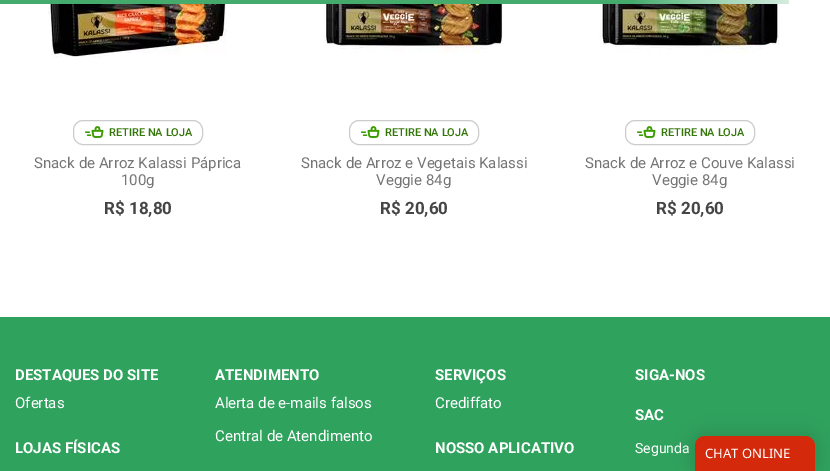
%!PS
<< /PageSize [830 471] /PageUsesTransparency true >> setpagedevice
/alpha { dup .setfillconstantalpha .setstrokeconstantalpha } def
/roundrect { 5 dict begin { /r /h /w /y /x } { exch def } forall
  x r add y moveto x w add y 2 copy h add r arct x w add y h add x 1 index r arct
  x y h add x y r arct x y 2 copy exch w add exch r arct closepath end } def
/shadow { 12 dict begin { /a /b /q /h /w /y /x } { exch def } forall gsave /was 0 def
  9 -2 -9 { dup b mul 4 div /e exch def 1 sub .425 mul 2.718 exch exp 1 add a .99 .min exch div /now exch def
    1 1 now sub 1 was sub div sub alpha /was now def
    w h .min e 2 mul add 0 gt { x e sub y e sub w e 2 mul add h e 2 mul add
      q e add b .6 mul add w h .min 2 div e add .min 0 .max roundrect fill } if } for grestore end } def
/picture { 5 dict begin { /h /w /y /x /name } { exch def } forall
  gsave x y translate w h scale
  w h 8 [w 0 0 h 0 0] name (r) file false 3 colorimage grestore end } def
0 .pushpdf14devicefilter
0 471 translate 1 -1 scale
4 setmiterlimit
1 setgray
0 0 830 471 rectfill
gsave newpath 0 0 moveto 789 0 lineto 789 4 lineto 0 4 lineto closepath clip newpath
<< /ShadingType 2 /ColorSpace /DeviceRGB /Coords [0 2 789 2] /Extend [true true] /Function << /FunctionType 3 /Domain [0 1] /Functions [<< /FunctionType 2 /Domain [0 1] /C0 [0.267 0.671 0.427] /C1 [0.267 0.671 0.427] /N 1 >> << /FunctionType 2 /Domain [0 1] /C0 [0.267 0.671 0.427] /C1 [0.592 0.82 0.682] /N 1 >> << /FunctionType 2 /Domain [0 1] /C0 [0.592 0.82 0.682] /C1 [0.835 0.925 0.875] /N 1 >>] /Bounds [0.8 0.9] /Encode [0 1 0 1 0 1] >> >> shfill grestore
(img1.rgb) 47 4 180 54 picture
0.8 setgray
73.5 120.5 129 24 9.5 roundrect stroke
(img2.rgb) 84 126 20 12 picture
/Roboto-Medium [11 0 0 -11 0 0] selectfont
0.2 0.467 0.035 setrgbcolor
109 136 moveto (RETIRE NA LOJA) show
/Roboto-Regular [15 0 0 -15 0 0] selectfont
0.459 setgray
34 168 moveto (Snack de Arroz Kalassi Páprica) show
121 185 moveto (100g) show
/Roboto-Bold [17 0 0 -17 0 0] selectfont
0.271 setgray
104 214 moveto (R$ 18,80) show
(img3.rgb) 323 4 180 50 picture
0.8 setgray
349.5 120.5 129 24 9.5 roundrect stroke
(img2.rgb) 360 126 20 12 picture
/Roboto-Medium [11 0 0 -11 0 0] selectfont
0.2 0.467 0.035 setrgbcolor
385 136 moveto (RETIRE NA LOJA) show
/Roboto-Regular [15 0 0 -15 0 0] selectfont
0.459 setgray
301 168 moveto (Snack de Arroz e Vegetais Kalassi) show
376 185 moveto (Veggie 84g) show
/Roboto-Bold [17 0 0 -17 0 0] selectfont
0.271 setgray
380 214 moveto (R$ 20,60) show
(img4.rgb) 599 4 180 50 picture
0.8 setgray
625.5 120.5 129 24 9.5 roundrect stroke
(img2.rgb) 636 126 20 12 picture
/Roboto-Medium [11 0 0 -11 0 0] selectfont
0.2 0.467 0.035 setrgbcolor
661 136 moveto (RETIRE NA LOJA) show
/Roboto-Regular [15 0 0 -15 0 0] selectfont
0.459 setgray
585 168 moveto (Snack de Arroz e Couve Kalassi) show
652 185 moveto (Veggie 84g) show
/Roboto-Bold [17 0 0 -17 0 0] selectfont
0.271 setgray
656 214 moveto (R$ 20,60) show
0.184 0.635 0.365 setrgbcolor
0 317 830 154 rectfill
/Roboto-Bold [15 0 0 -15 0 0] selectfont
1 setgray
15 380 moveto (DESTAQUES DO SITE) show
/Roboto-Regular [15 0 0 -15 0 0] selectfont
15 408 moveto (Ofertas) show
/Roboto-Bold [15 0 0 -15 0 0] selectfont
15 453 moveto (LOJAS FÍSICAS) show
215 380 moveto (ATENDIMENTO) show
/Roboto-Regular [15 0 0 -15 0 0] selectfont
215 408 moveto (Alerta de e-mails falsos) show
215 441 moveto (Central de Atendimento) show
/Roboto-Bold [15 0 0 -15 0 0] selectfont
435 380 moveto (SERVIÇOS) show
/Roboto-Regular [15 0 0 -15 0 0] selectfont
435 408 moveto (Crediffato) show
/Roboto-Bold [15 0 0 -15 0 0] selectfont
435 453 moveto (NOSSO APLICATIVO) show
635 380 moveto (SIGA-NOS) show
635 420 moveto (SAC) show
/Roboto-Regular [14 0 0 -14 0 0] selectfont
635 453 moveto (Segunda) show
0 setgray
689 430 132 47 16 7 0.09 shadow
0.831 0.161 0.043 setrgbcolor
newpath 705 436 moveto 805 436 lineto 810.5 436 815 440.5 815 446 curveto 815 471 lineto 695 471 lineto 695 446 lineto 695 440.5 699.5 436 705 436 curveto closepath fill
/NotoSans-Regular [13 0 0 -13 0 0] selectfont
1 setgray
705 458 moveto (CHAT ONLINE) show
.poppdf14devicefilter showpage
